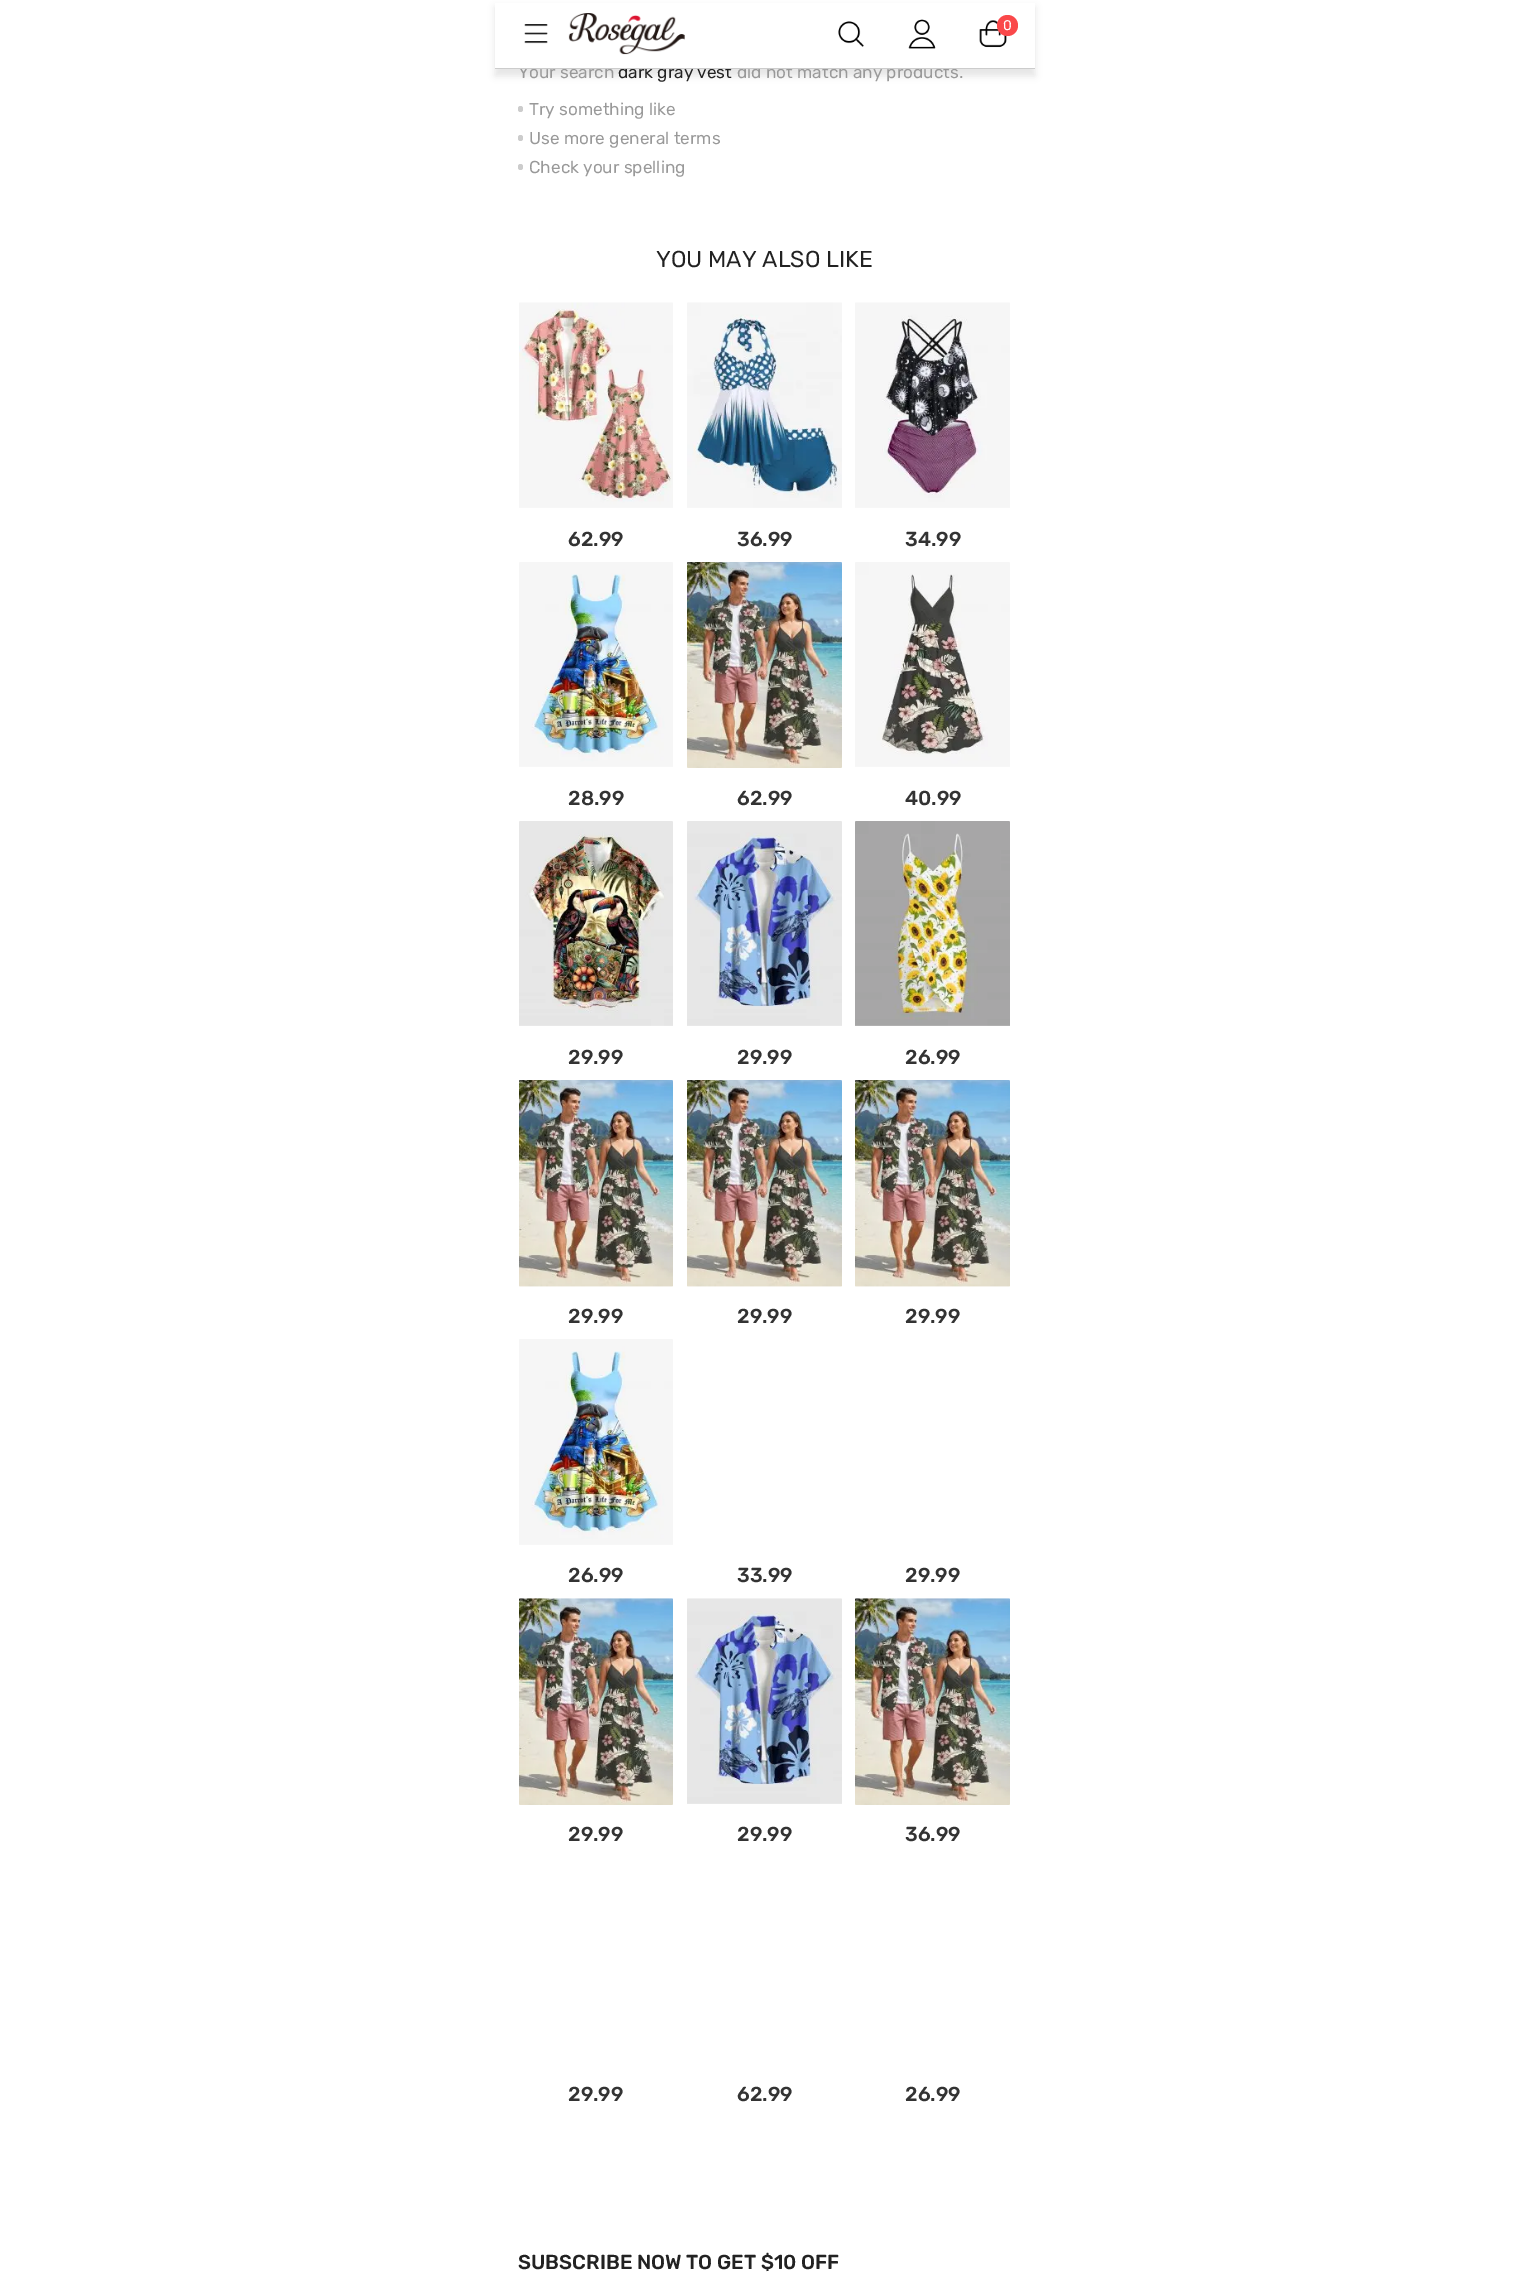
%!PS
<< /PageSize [1529 2273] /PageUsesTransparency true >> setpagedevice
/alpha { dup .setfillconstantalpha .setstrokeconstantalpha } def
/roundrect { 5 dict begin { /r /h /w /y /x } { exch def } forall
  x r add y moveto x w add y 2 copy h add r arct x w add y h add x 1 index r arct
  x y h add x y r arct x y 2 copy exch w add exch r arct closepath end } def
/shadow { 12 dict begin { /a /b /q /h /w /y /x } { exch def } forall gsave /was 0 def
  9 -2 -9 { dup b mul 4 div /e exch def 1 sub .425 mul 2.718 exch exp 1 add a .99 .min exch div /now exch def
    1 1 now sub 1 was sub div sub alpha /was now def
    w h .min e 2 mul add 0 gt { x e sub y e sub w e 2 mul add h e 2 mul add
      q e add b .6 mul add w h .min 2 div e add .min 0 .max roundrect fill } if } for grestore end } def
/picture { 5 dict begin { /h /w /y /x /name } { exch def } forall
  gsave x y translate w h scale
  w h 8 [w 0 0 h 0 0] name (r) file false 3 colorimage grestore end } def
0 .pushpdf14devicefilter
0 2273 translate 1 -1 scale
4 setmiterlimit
1 setgray
0 0 1529 2273 rectfill
0 setgray
495 7 540 69 0 3.5 0.1 shadow
/Rubik-Regular [17.25 0 0 -17.25 0 0] selectfont
0.6 setgray
518 78 moveto (Your search) show
0.133 setgray
618 78 moveto (dark gray vest) show
0.6 setgray
737 78 moveto (did not match any products.) show
1 setgray
495 3 540 65 rectfill
0.8 setgray
495 68 540 1 rectfill
(img1.rgb) 524 24 24 20 picture
(img2.rgb) 568 13 117 42 picture
(img3.rgb) 838 21 26 26 picture
(img4.rgb) 908 19 28 30 picture
(img5.rgb) 979 20 28 28 picture
0.98 0.282 0.29 setrgbcolor
newpath 1007.5 25.5 10.5 0 360 arc closepath fill
/Rubik-Regular [14 0 0 -14 0 0] selectfont
1 setgray
1003 30 moveto (0) show
0.8 setgray
518 106 5 6 2.5 roundrect fill
/Rubik-Regular [17.25 0 0 -17.25 0 0] selectfont
0.6 setgray
529 115 moveto (Try something like) show
0.8 setgray
518 135 5 6 2.5 roundrect fill
0.6 setgray
529 144 moveto (Use more general terms) show
0.8 setgray
518 164 5 6 2.5 roundrect fill
0.6 setgray
529 173 moveto (Check your spelling) show
/Rubik-Regular [23 0 0 -23 0 0] selectfont
0.133 setgray
656 267 moveto (YOU MAY ALSO LIKE) show
(img6.rgb) 519 302 154 206 picture
/Rubik-Medium [20.2 0 0 -20.2 0 0] selectfont
0.2 setgray
568 546 moveto (62.99) show
(img7.rgb) 687 302 155 206 picture
737 546 moveto (36.99) show
(img8.rgb) 855 302 155 206 picture
905 546 moveto (34.99) show
(img9.rgb) 519 562 154 205 picture
568 805 moveto (28.99) show
(img10.rgb) 687 562 155 206 picture
737 805 moveto (62.99) show
(img11.rgb) 855 562 155 205 picture
905 805 moveto (40.99) show
(img12.rgb) 519 821 154 205 picture
568 1064 moveto (29.99) show
(img13.rgb) 687 821 155 205 picture
737 1064 moveto (29.99) show
(img14.rgb) 855 821 155 205 picture
905 1064 moveto (26.99) show
(img15.rgb) 519 1080 154 207 picture
568 1323 moveto (29.99) show
(img16.rgb) 687 1080 155 207 picture
737 1323 moveto (29.99) show
(img16.rgb) 855 1080 155 207 picture
905 1323 moveto (29.99) show
(img17.rgb) 519 1339 154 206 picture
568 1582 moveto (26.99) show
737 1582 moveto (33.99) show
905 1582 moveto (29.99) show
(img18.rgb) 519 1598 154 207 picture
568 1841 moveto (29.99) show
(img19.rgb) 687 1598 155 206 picture
737 1841 moveto (29.99) show
(img20.rgb) 855 1598 155 207 picture
905 1841 moveto (36.99) show
568 2101 moveto (29.99) show
737 2101 moveto (62.99) show
905 2101 moveto (26.99) show
0.133 setgray
518 2269 moveto (SUBSCRIBE NOW TO GET $10 OFF) show
.poppdf14devicefilter showpage
